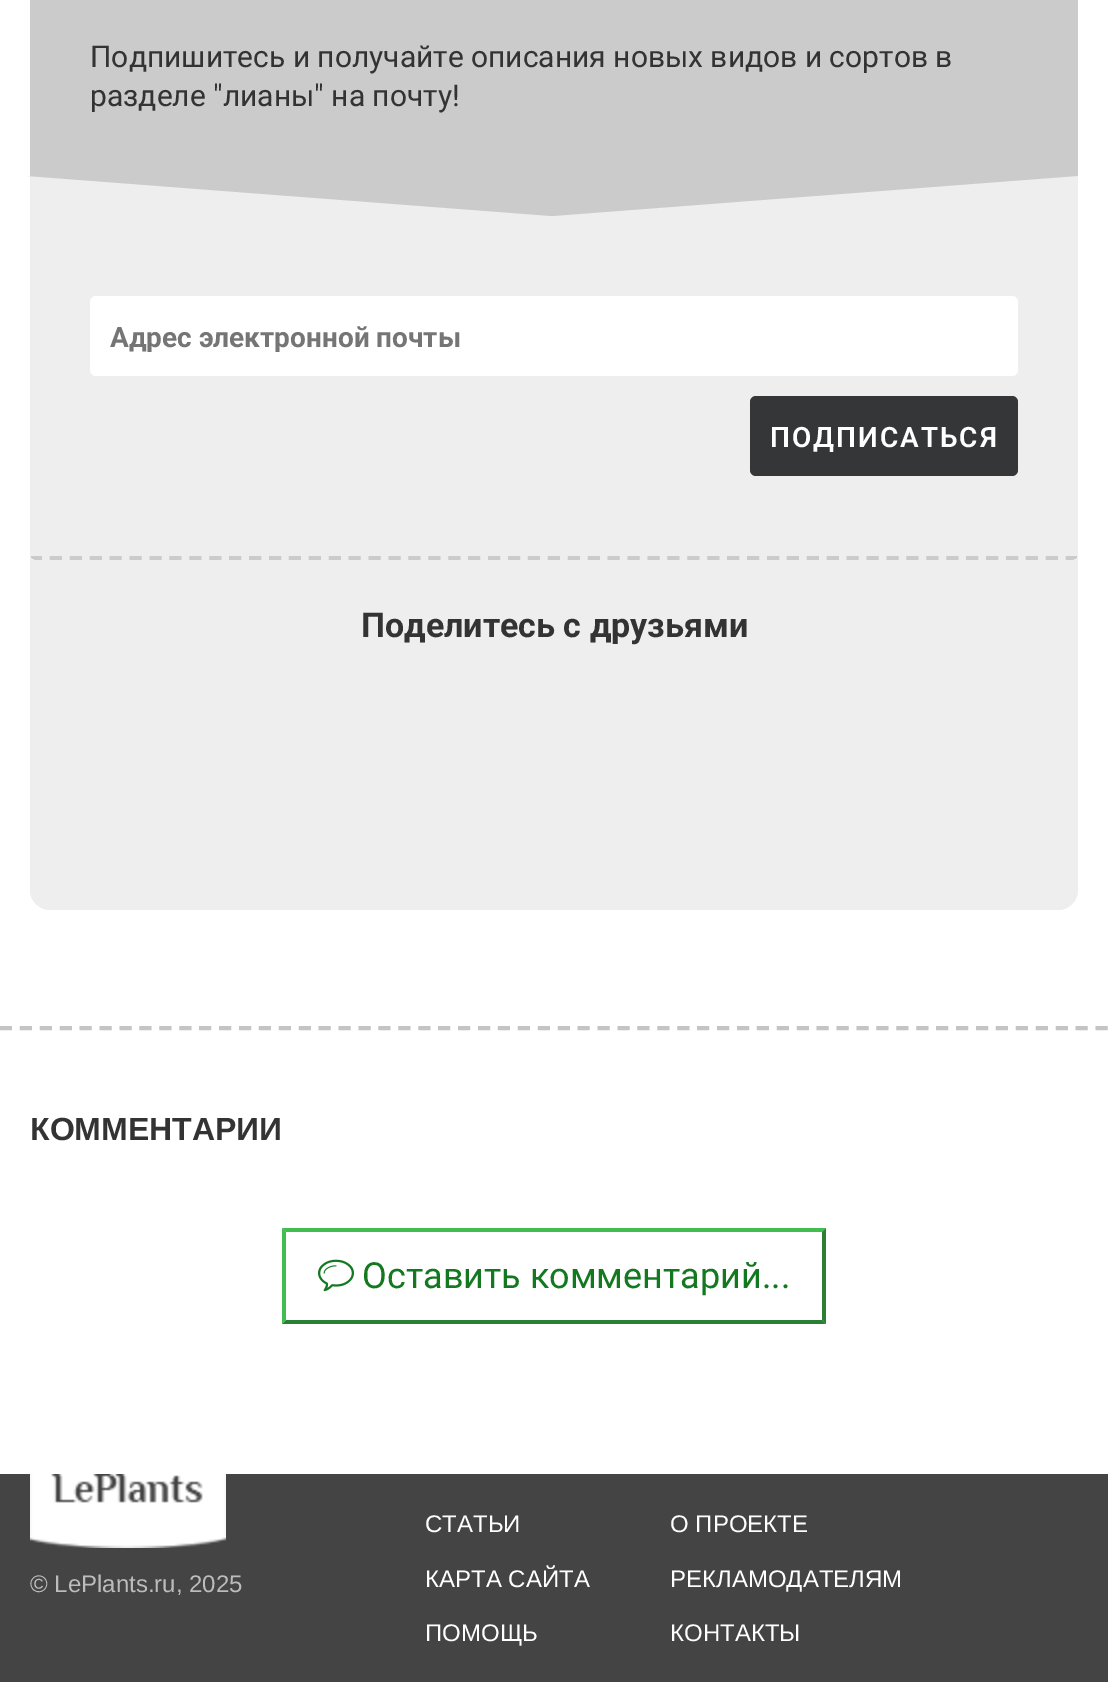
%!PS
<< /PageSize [1108 1682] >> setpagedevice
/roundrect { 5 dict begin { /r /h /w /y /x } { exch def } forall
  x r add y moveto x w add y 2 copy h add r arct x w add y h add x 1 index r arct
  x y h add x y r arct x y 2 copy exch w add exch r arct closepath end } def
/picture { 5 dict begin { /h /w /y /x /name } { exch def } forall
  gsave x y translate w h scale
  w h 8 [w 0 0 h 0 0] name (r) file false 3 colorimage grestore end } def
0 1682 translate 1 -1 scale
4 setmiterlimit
1 setgray
0 0 1108 1682 rectfill
0.933 setgray
30 -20 1048 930 20 roundrect fill
0.8 0.796 0.796 setrgbcolor
30 0 1048 176 rectfill
/Roboto-Regular [30 0 0 -30 0 0] selectfont
0.2 setgray
90 67 moveto (Подпишитесь и получайте описания новых видов и сортов в) show
90 106 moveto (разделе "лианы" на почту!) show
gsave
30 -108 1048 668 8 roundrect clip newpath
0.8 0.796 0.796 setrgbcolor
4 setlinewidth
[12 7.92] 0 setdash
newpath 30 558 moveto 1078 558 lineto stroke
grestore
0.8 0.796 0.796 setrgbcolor
newpath 28 176 moveto 552 216 lineto 1076 176 lineto closepath fill
1 setgray
90 296 928 80 6 roundrect fill
gsave
110 320 888 32 rectclip
/Roboto-Bold [28 0 0 -28 0 0] selectfont
0.459 setgray
110 347 moveto (Адрес электронной почты) show
grestore
0.208 0.212 0.216 setrgbcolor
750 396 268 80 6 roundrect fill
/Roboto-SemiBold [28 0 0 -28 0 0] selectfont
1 setgray
770 447 moveto 2 0 (ПОДПИСАТЬСЯ) ashow
/Roboto-Bold [34 0 0 -34 0 0] selectfont
0.2 setgray
361 637 moveto (Поделитесь с друзьями) show
0.769 0.769 0.765 setrgbcolor
4 setlinewidth
[12 7.92] 0 setdash
newpath 0 1028 moveto 1108 1028 lineto stroke
/LiberationSans-Bold [32 0 0 -32 0 0] selectfont
0.2 setgray
30 1140 moveto (КОММЕНТАРИИ) show
0.255 0.745 0.31 setrgbcolor
newpath 282 1228 moveto 826 1228 lineto 822 1232 lineto 286 1232 lineto closepath fill
0.169 0.498 0.208 setrgbcolor
newpath 826 1228 moveto 826 1324 lineto 822 1320 lineto 822 1232 lineto closepath fill
newpath 826 1324 moveto 282 1324 lineto 286 1320 lineto 822 1320 lineto closepath fill
0.255 0.745 0.31 setrgbcolor
newpath 282 1324 moveto 282 1228 lineto 286 1232 lineto 286 1320 lineto closepath fill
(img1.rgb) 318 1259 36 33 picture
/Roboto-Regular [36 0 0 -36 0 0] selectfont
0.078 0.471 0.129 setrgbcolor
362 1288 moveto (Оставить комментарий...) show
0.267 setgray
0 1474 1108 208 rectfill
(img2.rgb) 30 1474 196 74 picture
/LiberationSans-Regular [24 0 0 -24 0 0] selectfont
0.737 setgray
30 1592 moveto (© LePlants.ru, 2025) show
1 setgray
425 1532 moveto (СТАТЬИ) show
425 1587 moveto (КАРТА САЙТА) show
425 1641 moveto (ПОМОЩЬ) show
670 1532 moveto (О ПРОЕКТЕ) show
670 1587 moveto (РЕКЛАМОДАТЕЛЯМ) show
670 1641 moveto (КОНТАКТЫ) show
showpage
